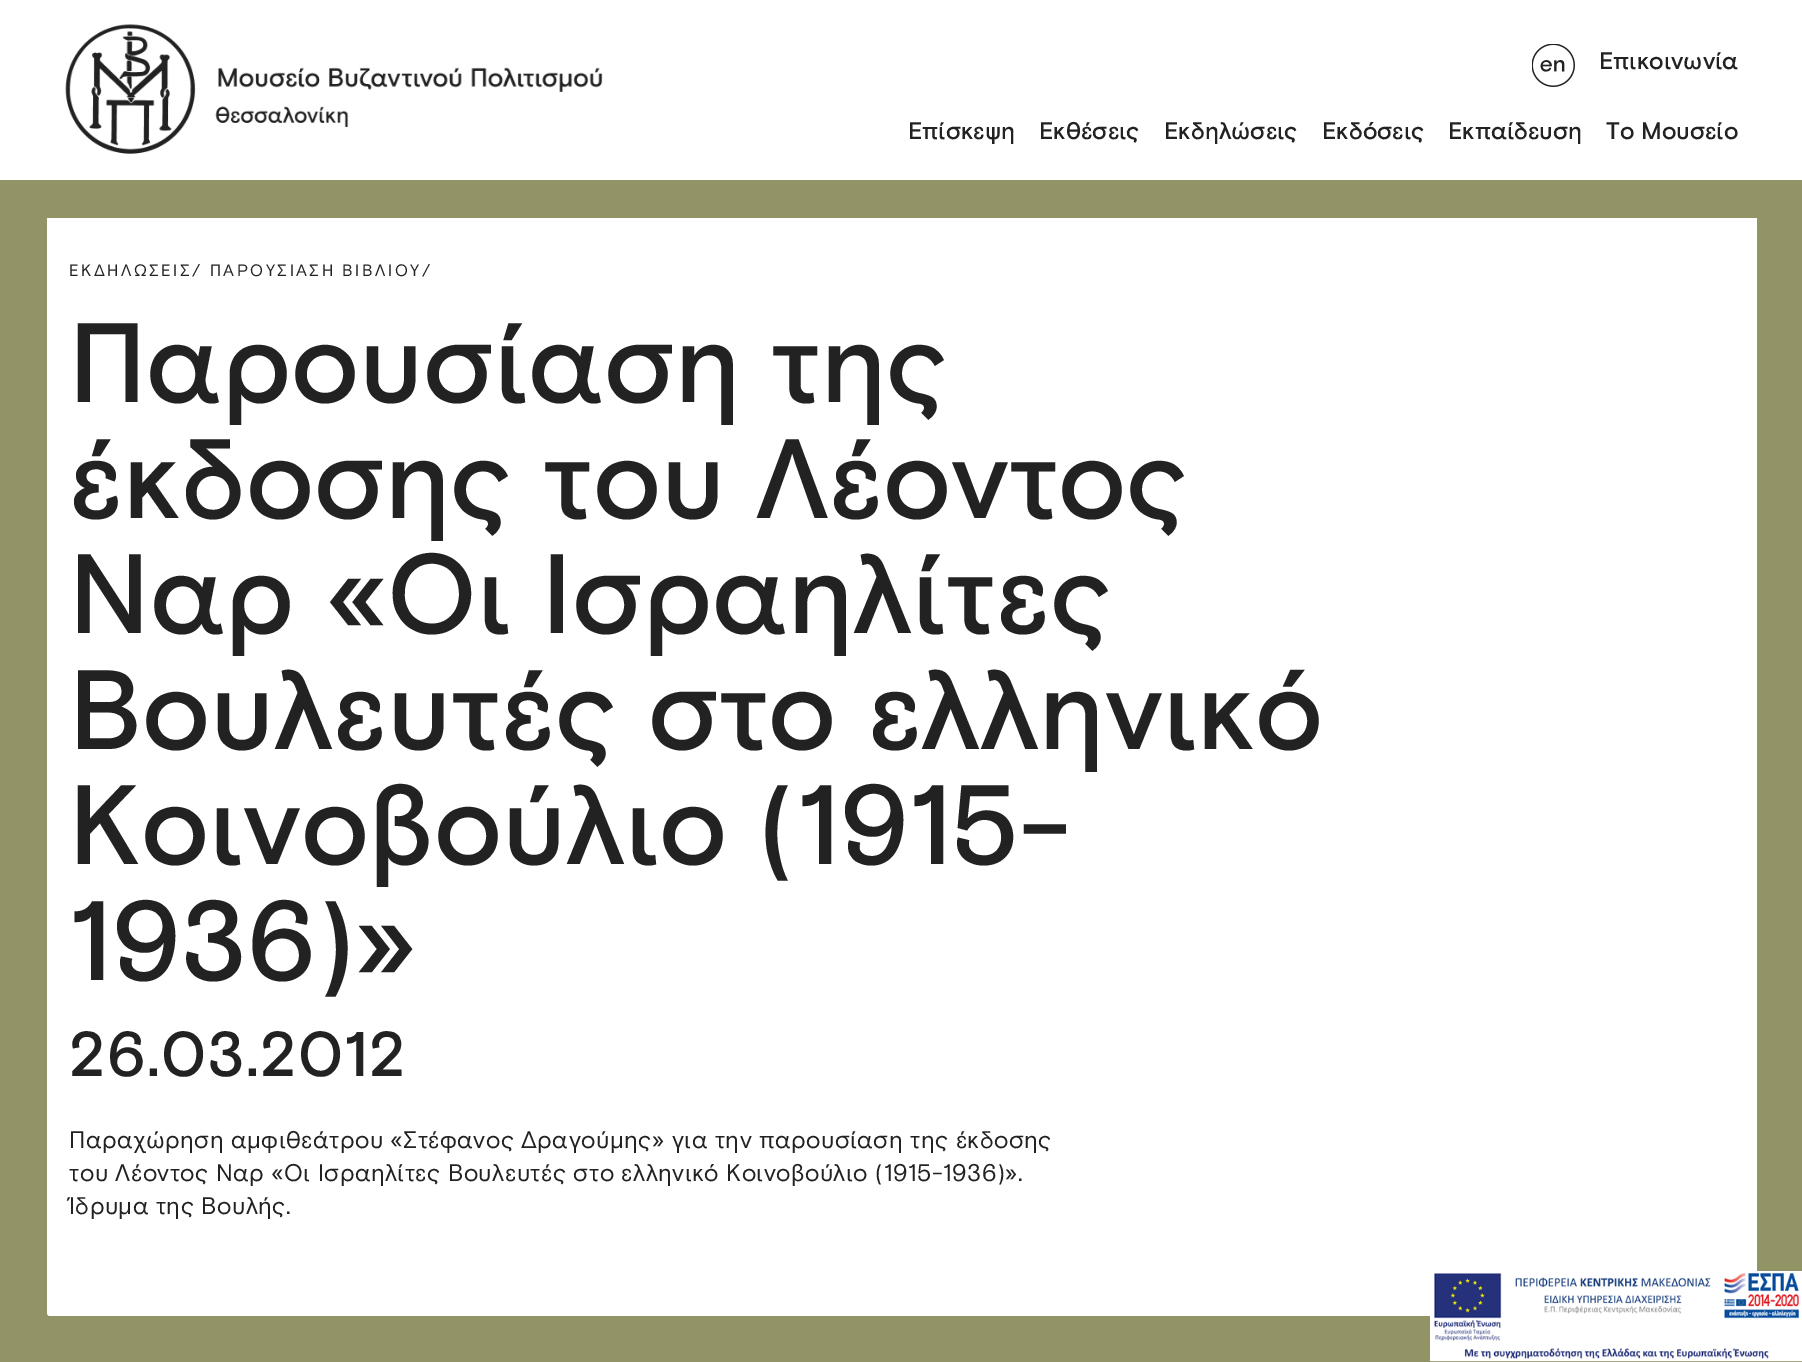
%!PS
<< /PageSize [1802 1362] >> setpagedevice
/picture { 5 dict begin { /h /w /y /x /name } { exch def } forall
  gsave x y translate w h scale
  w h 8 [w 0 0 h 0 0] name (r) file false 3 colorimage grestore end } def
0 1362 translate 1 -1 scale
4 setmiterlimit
1 setgray
0 0 1802 1362 rectfill
(img1.rgb) 65 24 538 130 picture
(img2.rgb) 1532 44 43 43 picture
/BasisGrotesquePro-Medium [24 0 0 -24 0 0] selectfont
0.133 setgray
1599 69 moveto (Επικοινωνία) show
908 139 moveto (Επίσκεψη) show
1039 139 moveto (Εκθέσεις) show
1164 139 moveto (Εκδηλώσεις) show
1322 139 moveto (Εκδόσεις) show
1448 139 moveto (Εκπαίδευση) show
1606 139 moveto (Το Μουσείο) show
0.576 0.58 0.4 setrgbcolor
0 180 1802 1182 rectfill
1 setgray
newpath 47 218 moveto 1757 218 lineto 1757 1313 lineto 1757 1314.5 1755.5 1316 1754 1316 curveto 50 1316 lineto 48.5 1316 47 1314.5 47 1313 curveto closepath fill
/BasisGrotesquePro-Regular [16.5 0 0 -16.5 0 0] selectfont
0.133 setgray
69 276 moveto 2.5 0 (ΕΚΔΗΛΩΣΕΙΣ/ ΠΑΡΟΥΣΙΑΣΗ ΒΙΒΛΙΟΥ/) ashow
/BasisGrotesquePro-Medium [112.5 0 0 -112.5 0 0] selectfont
69 402 moveto (Παρουσίαση της) show
69 518 moveto (έκδοσης του Λέοντος) show
69 633 moveto (Ναρ «Οι Ισραηλίτες) show
69 749 moveto (Βουλευτές στο ελληνικό) show
69 864 moveto (Κοινοβούλιο \(1915-) show
69 980 moveto (1936\)») show
/BasisGrotesquePro-Medium [63 0 0 -63 0 0] selectfont
69 1076 moveto 1.25 0 (26.03.2012) ashow
/BasisGrotesquePro-Regular [24 0 0 -24 0 0] selectfont
69 1148 moveto 0.48 0 (Παραχώρηση αμφιθεάτρου «Στέφανος Δραγούμης» για την παρουσίαση της έκδοσης) ashow
69 1181 moveto 0.48 0 (του Λέοντος Ναρ «Οι Ισραηλίτες Βουλευτές στο ελληνικό Κοινοβούλιο \(1915-1936\)».) ashow
69 1214 moveto 0.48 0 (Ίδρυμα της Βουλής.) ashow
(img3.rgb) 1430 1271 372 91 picture
showpage
